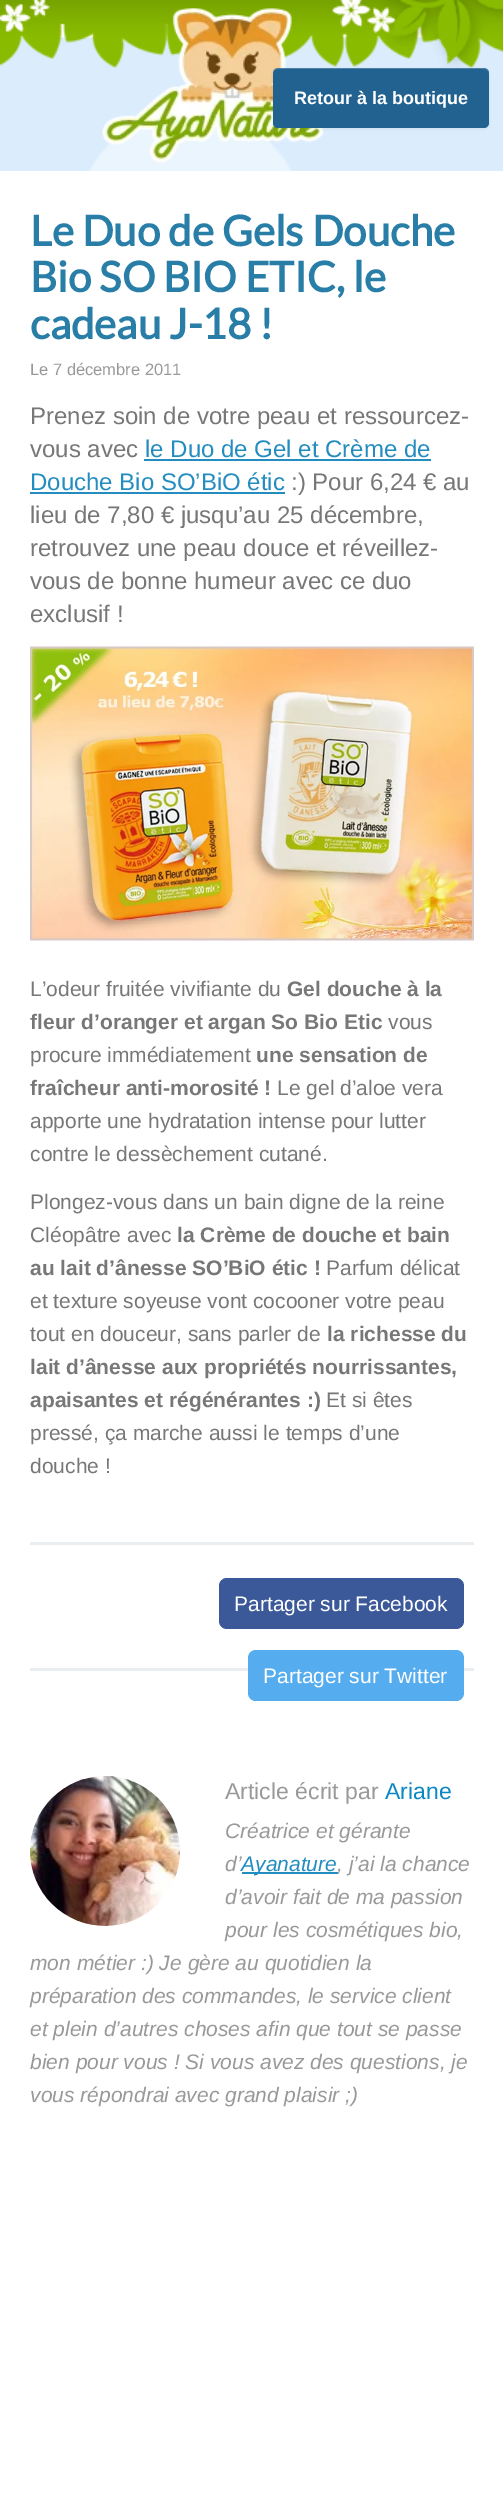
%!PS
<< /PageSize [503 2505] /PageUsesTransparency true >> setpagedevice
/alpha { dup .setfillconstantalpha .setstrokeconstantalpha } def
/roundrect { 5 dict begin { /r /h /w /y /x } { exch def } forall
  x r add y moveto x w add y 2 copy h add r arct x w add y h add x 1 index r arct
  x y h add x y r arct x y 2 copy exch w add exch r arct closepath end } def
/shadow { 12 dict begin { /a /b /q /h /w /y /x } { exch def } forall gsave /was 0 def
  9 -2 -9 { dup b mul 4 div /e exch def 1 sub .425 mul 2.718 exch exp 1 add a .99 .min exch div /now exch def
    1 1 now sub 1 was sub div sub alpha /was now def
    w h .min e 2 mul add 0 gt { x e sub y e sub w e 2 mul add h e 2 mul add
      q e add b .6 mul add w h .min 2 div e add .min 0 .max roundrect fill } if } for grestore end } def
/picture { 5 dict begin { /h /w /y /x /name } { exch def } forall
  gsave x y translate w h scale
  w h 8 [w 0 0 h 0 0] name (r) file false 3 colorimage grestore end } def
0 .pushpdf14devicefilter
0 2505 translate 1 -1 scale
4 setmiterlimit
1 setgray
0 0 503 2505 rectfill
(img1.rgb) 0 37 503 134 picture
(img2.rgb) 0 0 503 68 picture
(img3.rgb) 102 8 222 155 picture
0 setgray
273 69 216 60 5 1.5 0.05 shadow
0.129 0.384 0.569 setrgbcolor
273 68 216 60 5 roundrect fill
0.2 alpha
1 setgray
newpath 278 69 moveto 484 69 lineto 487 69 489 71 489 74 curveto 489 71 487 68 484 68 curveto 277 68 lineto 274 69 273 71 273 74 curveto 273 71 275 69 278 69 curveto closepath fill
/LiberationSans-Bold [18 0 0 -18 0 0] selectfont
1 alpha
294 104 moveto (Retour à la boutique) show
/Lato-Bold [42 0 0 -42 0 0] selectfont
0.157 0.494 0.655 setrgbcolor
30 246 moveto (Le Duo de Gels Douche) show
30 292 moveto (Bio SO BIO ETIC, le) show
30 339 moveto (cadeau J-18 !) show
/LiberationSans-Regular [16.5 0 0 -16.5 0 0] selectfont
0.6 setgray
30 375 moveto (Le 7 décembre 2011) show
/LiberationSans-Regular [24 0 0 -24 0 0] selectfont
0.467 setgray
30 424 moveto (Prenez soin de votre peau et ressourcez-) show
30 457 moveto (vous avec) show
0.137 0.553 0.753 setrgbcolor
145 457 moveto (le Duo de Gel et Crème de) show
144 459 287 2 rectfill
30 490 moveto (Douche Bio SO’BiO étic) show
30 492 255 2 rectfill
0.467 setgray
291 490 moveto (:\) Pour 6,24 € au) show
30 523 moveto (lieu de 7,80 € jusqu’au 25 décembre,) show
30 556 moveto (retrouvez une peau douce et réveillez-) show
30 589 moveto (vous de bonne humeur avec ce duo) show
30 622 moveto (exclusif !) show
(img4.rgb) 30 646 444 295 picture
/LiberationSans-Regular [21 0 0 -21 0 0] selectfont
30 996 moveto (L’odeur fruitée vivifiante du) show
/LiberationSans-Bold [21 0 0 -21 0 0] selectfont
287 996 moveto (Gel douche à la) show
30 1029 moveto (fleur d’oranger et argan So Bio Etic) show
/LiberationSans-Regular [21 0 0 -21 0 0] selectfont
388 1029 moveto (vous) show
30 1062 moveto (procure immédiatement) show
/LiberationSans-Bold [21 0 0 -21 0 0] selectfont
256 1062 moveto (une sensation de) show
30 1095 moveto (fraîcheur anti-morosité !) show
/LiberationSans-Regular [21 0 0 -21 0 0] selectfont
277 1095 moveto (Le gel d’aloe vera) show
30 1128 moveto (apporte une hydratation intense pour lutter) show
30 1161 moveto (contre le dessèchement cutané.) show
30 1209 moveto (Plongez-vous dans un bain digne de la reine) show
30 1242 moveto (Cléopâtre avec) show
/LiberationSans-Bold [21 0 0 -21 0 0] selectfont
177 1242 moveto (la Crème de douche et bain) show
30 1275 moveto (au lait d’ânesse SO’BiO étic !) show
/LiberationSans-Regular [21 0 0 -21 0 0] selectfont
326 1275 moveto (Parfum délicat) show
30 1308 moveto (et texture soyeuse vont cocooner votre peau) show
30 1341 moveto (tout en douceur, sans parler de) show
/LiberationSans-Bold [21 0 0 -21 0 0] selectfont
327 1341 moveto (la richesse du) show
30 1374 moveto (lait d’ânesse aux propriétés nourrissantes,) show
30 1407 moveto (apaisantes et régénérantes :\)) show
/LiberationSans-Regular [21 0 0 -21 0 0] selectfont
326 1407 moveto (Et si êtes) show
30 1440 moveto (pressé, ça marche aussi le temps d’une) show
30 1473 moveto (douche !) show
0.922 0.933 0.945 setrgbcolor
30 1542 444 3 rectfill
30 1668 444 3 rectfill
0.231 0.349 0.596 setrgbcolor
219 1578 245 51 8 roundrect fill
1 setgray
234 1611 moveto (Partager sur Facebook) show
0.333 0.675 0.933 setrgbcolor
248 1650 216 51 8 roundrect fill
1 setgray
263 1683 moveto (Partager sur Twitter) show
(img5.rgb) 30 1776 150 150 picture
/LiberationSans-Regular [23 0 0 -23 0 0] selectfont
0.6 setgray
225 1799 moveto (Article écrit par) show
0.047 0.529 0.757 setrgbcolor
385 1799 moveto (Ariane) show
/LiberationSans-Italic [21 0 0 -21 0 0] selectfont
0.6 setgray
225 1838 moveto (Créatrice et gérante) show
225 1871 moveto (d’) show
0.137 0.553 0.753 setrgbcolor
242 1872 96 2 rectfill
241 1871 moveto (Ayanature) show
0.6 setgray
337 1871 moveto (, j’ai la chance) show
225 1904 moveto (d’avoir fait de ma passion) show
225 1937 moveto (pour les cosmétiques bio,) show
30 1970 moveto (mon métier :\) Je gère au quotidien la) show
30 2003 moveto (préparation des commandes, le service client) show
30 2036 moveto (et plein d’autres choses afin que tout se passe) show
30 2069 moveto (bien pour vous ! Si vous avez des questions, je) show
30 2102 moveto (vous répondrai avec grand plaisir ;\)) show
.poppdf14devicefilter showpage
